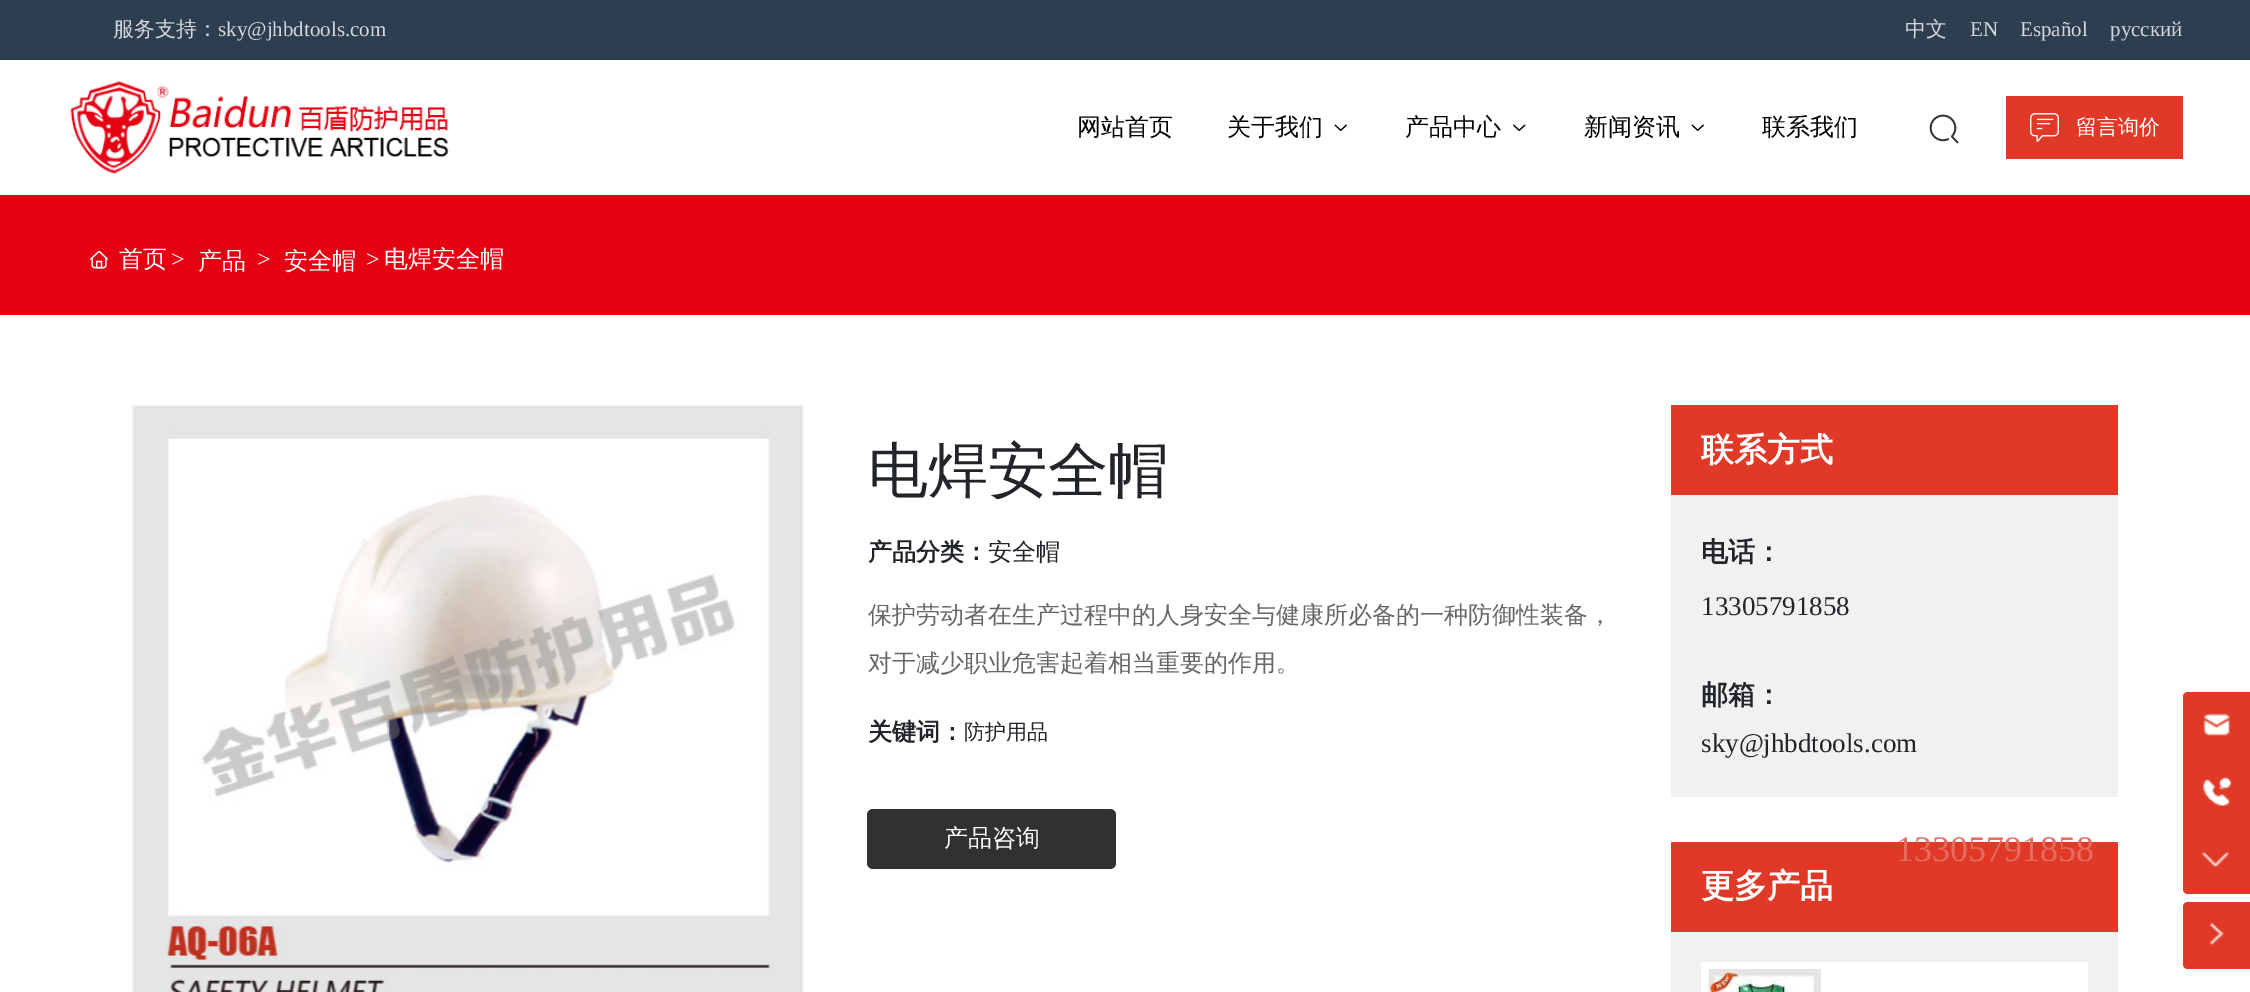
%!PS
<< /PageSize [2250 992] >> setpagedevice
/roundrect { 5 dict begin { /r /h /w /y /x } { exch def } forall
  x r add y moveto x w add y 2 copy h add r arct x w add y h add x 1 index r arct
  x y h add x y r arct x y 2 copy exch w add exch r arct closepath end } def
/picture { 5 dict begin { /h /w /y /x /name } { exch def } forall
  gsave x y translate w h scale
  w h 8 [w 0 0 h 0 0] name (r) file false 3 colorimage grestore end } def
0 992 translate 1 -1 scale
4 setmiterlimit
1 setgray
0 0 2250 992 rectfill
0.176 0.243 0.314 setrgbcolor
0 0 2250 60 rectfill
/WenQuanYiZenHei-Medium [21 0 0 -21 0 0] selectfont
0.835 0.847 0.863 setrgbcolor
113 36 moveto (服务支持：) show
/LiberationSerif-Regular [21 0 0 -21 0 0] selectfont
218 36 moveto (sky@jhbdtools.com) show
/WenQuanYiZenHei-Medium [21 0 0 -21 0 0] selectfont
1905 36 moveto (中文) show
/LiberationSerif-Regular [21 0 0 -21 0 0] selectfont
1970 36 moveto (EN) show
2020 36 moveto (Español) show
2110 36 moveto (русский) show
(img1.rgb) 70 81 379 93 picture
/WenQuanYiZenHei-Medium [24 0 0 -24 0 0] selectfont
0 setgray
1077 135 moveto (网站首页) show
1227 135 moveto (关于我们) show
(img2.rgb) 1334 124 13 7 picture
1405 135 moveto (产品中心) show
(img3.rgb) 1513 124 13 7 picture
1584 135 moveto (新闻资讯) show
(img2.rgb) 1691 124 13 7 picture
1762 135 moveto (联系我们) show
(img4.rgb) 1929 114 30 30 picture
0.878 0.224 0.153 setrgbcolor
2006 96 177 63 rectfill
(img5.rgb) 2030 113 29 29 picture
/WenQuanYiZenHei-Medium [21 0 0 -21 0 0] selectfont
1 setgray
2076 134 moveto (留言询价) show
0.898 0.004 0.071 setrgbcolor
0 195 2250 120 rectfill
(img6.rgb) 90 251 18 18 picture
/WenQuanYiZenHei-Medium [24 0 0 -24 0 0] selectfont
1 setgray
119 267 moveto (首页) show
/LiberationSerif-Regular [24 0 0 -24 0 0] selectfont
171 267 moveto (>) show
/WenQuanYiZenHei-Medium [24 0 0 -24 0 0] selectfont
198 269 moveto (产品) show
/LiberationSerif-Regular [24 0 0 -24 0 0] selectfont
257 267 moveto (>) show
/WenQuanYiZenHei-Medium [24 0 0 -24 0 0] selectfont
284 269 moveto (安全帽) show
/LiberationSerif-Regular [24 0 0 -24 0 0] selectfont
366 267 moveto (>) show
/WenQuanYiZenHei-Medium [24 0 0 -24 0 0] selectfont
384 267 moveto (电焊安全帽) show
0.933 setgray
2 setlinewidth
133 406 669 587 rectstroke
0.867 setgray
135 408 665 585 rectstroke
(img7.rgb) 135 408 665 584 picture
/WenQuanYiZenHei-Medium [60 0 0 -60 0 0] selectfont
0.129 0.145 0.161 setrgbcolor
868 491 moveto (电焊安全帽) show
/WenQuanYiZenHei-Bold [24 0 0 -24 0 0] selectfont
868 560 moveto (产品分类：) show
/WenQuanYiZenHei-Medium [24 0 0 -24 0 0] selectfont
988 560 moveto (安全帽) show
0.4 setgray
868 623 moveto (保护劳动者在生产过程中的人身安全与健康所必备的一种防御性装备，) show
868 671 moveto (对于减少职业危害起着相当重要的作用。) show
/WenQuanYiZenHei-Bold [24 0 0 -24 0 0] selectfont
0.129 0.145 0.161 setrgbcolor
868 740 moveto (关键词：) show
/WenQuanYiZenHei-Medium [21 0 0 -21 0 0] selectfont
964 739 moveto (防护用品) show
0.192 setgray
867 809 249 60 6 roundrect fill
/WenQuanYiZenHei-Medium [24 0 0 -24 0 0] selectfont
1 setgray
944 846 moveto (产品咨询) show
0.878 0.224 0.153 setrgbcolor
1671 405 447 90 rectfill
/WenQuanYiZenHei-Bold [33 0 0 -33 0 0] selectfont
1 setgray
1701 461 moveto (联系方式) show
0.945 setgray
1671 495 447 302 rectfill
/WenQuanYiZenHei-Bold [27 0 0 -27 0 0] selectfont
0.129 0.145 0.161 setrgbcolor
1701 561 moveto (电话：) show
/LiberationSerif-Regular [27 0 0 -27 0 0] selectfont
1701 615 moveto (13305791858) show
/WenQuanYiZenHei-Bold [27 0 0 -27 0 0] selectfont
1701 704 moveto (邮箱：) show
/LiberationSerif-Regular [27 0 0 -27 0 0] selectfont
1701 752 moveto (sky@jhbdtools.com) show
0.878 0.224 0.153 setrgbcolor
1671 842 447 90 rectfill
/WenQuanYiZenHei-Bold [33 0 0 -33 0 0] selectfont
1 setgray
1701 897 moveto (更多产品) show
0.945 setgray
1671 932 447 60 rectfill
1 setgray
1701 962 387 30 rectfill
(img8.rgb) 1708 969 113 23 picture
0.878 0.224 0.153 setrgbcolor
newpath 2188 692 moveto 2250 692 lineto 2250 894 lineto 2188 894 lineto 2185 894 2183 892 2183 889 curveto 2183 697 lineto 2183 694 2185 692 2188 692 curveto closepath fill
(img9.rgb) 2203 713 28 23 picture
(img10.rgb) 2203 776 29 30 picture
/LiberationSerif-Regular [36 0 0 -36 0 0] selectfont
0.91 0.424 0.369 setrgbcolor
1896 861 moveto (13305791858) show
(img11.rgb) 2201 851 29 17 picture
0.878 0.224 0.153 setrgbcolor
newpath 2188 902 moveto 2250 902 lineto 2250 969 lineto 2188 969 lineto 2185 969 2183 967 2183 964 curveto 2183 907 lineto 2183 904 2185 902 2188 902 curveto closepath fill
(img12.rgb) 2209 922 15 24 picture
showpage
